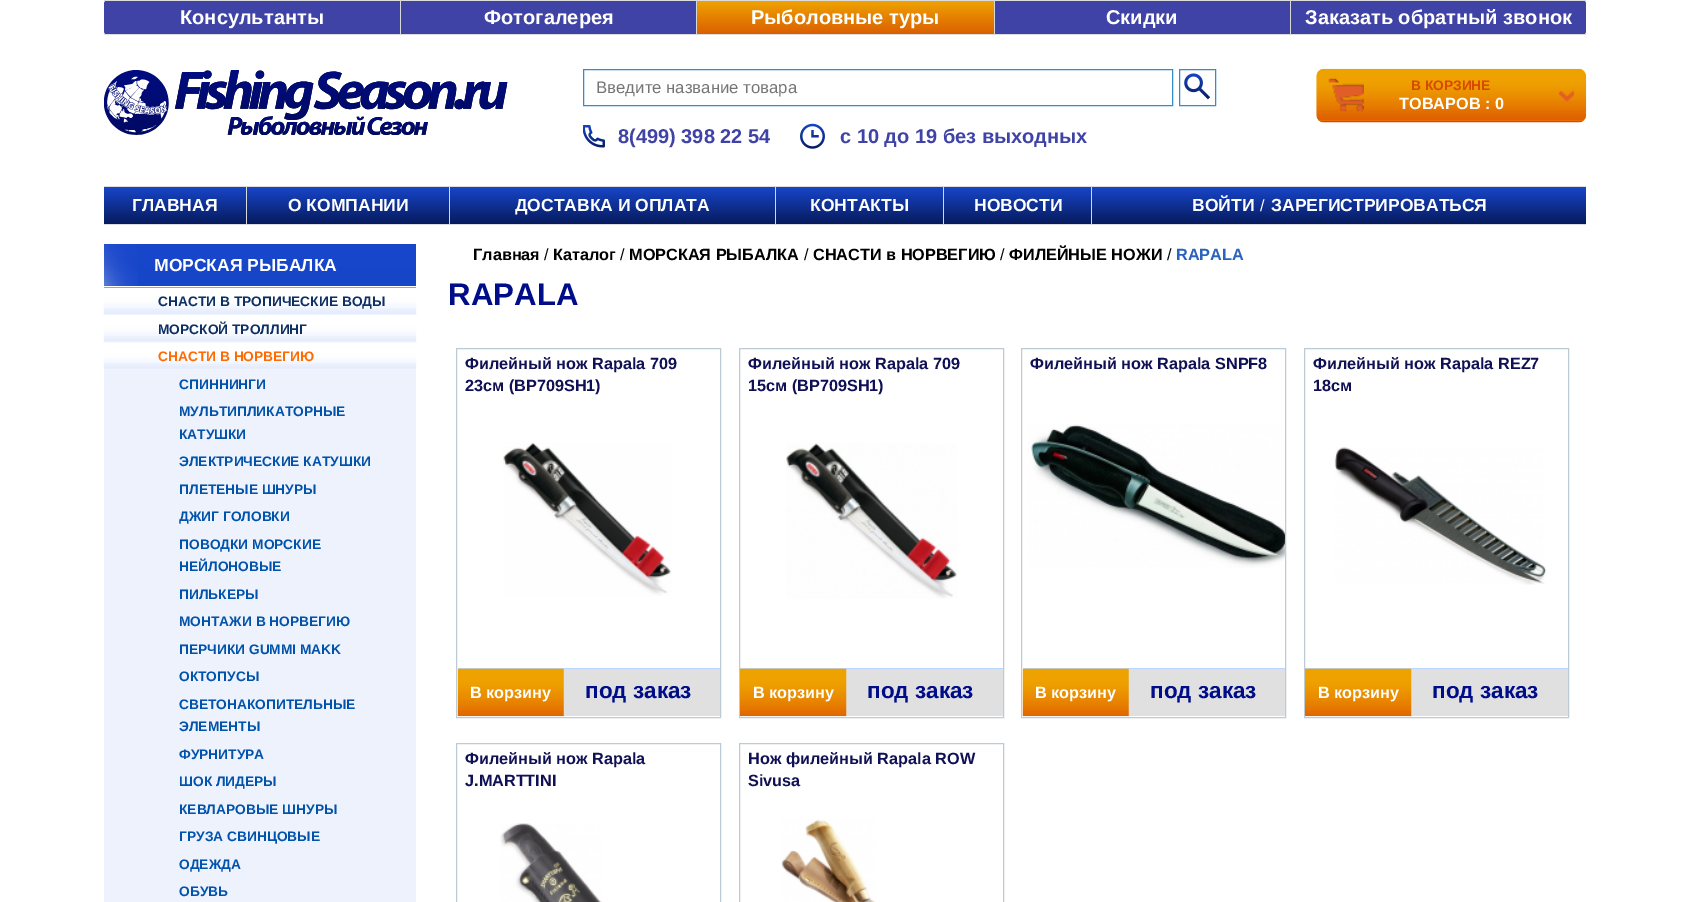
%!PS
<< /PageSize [1690 902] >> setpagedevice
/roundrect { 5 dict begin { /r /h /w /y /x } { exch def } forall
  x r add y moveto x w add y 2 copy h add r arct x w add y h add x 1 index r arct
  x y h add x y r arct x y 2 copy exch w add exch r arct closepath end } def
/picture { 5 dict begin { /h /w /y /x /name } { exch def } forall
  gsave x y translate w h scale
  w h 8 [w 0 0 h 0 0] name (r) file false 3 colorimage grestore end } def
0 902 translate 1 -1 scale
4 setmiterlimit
1 setgray
0 0 1690 902 rectfill
0.247 0.263 0.651 setrgbcolor
104 0 1482 35 4 roundrect fill
0.867 setgray
104 0 1482 1 rectfill
104 34 1482 1 rectfill
/LiberationSans-Bold [20 0 0 -20 0 0] selectfont
1 setgray
180 24 moveto (Консультанты) show
0.839 0.851 0.847 setrgbcolor
400 0 1 35 rectfill
1 setgray
484 24 moveto (Фотогалерея) show
gsave newpath 697 1 moveto 994 1 lineto 994 34 lineto 697 34 lineto closepath clip newpath
<< /ShadingType 2 /ColorSpace /DeviceRGB /Coords [846 1.2 846 34] /Extend [true true] /Function << /FunctionType 2 /Domain [0 1] /C0 [0.933 0.635 0] /C1 [0.859 0.373 0] /N 1 >> >> shfill grestore
0.839 0.851 0.847 setrgbcolor
696 0 1 35 rectfill
1 setgray
751 24 moveto (Рыболовные туры) show
0.839 0.851 0.847 setrgbcolor
994 0 1 35 rectfill
1 setgray
1106 24 moveto (Скидки) show
0.839 0.851 0.847 setrgbcolor
1290 0 1 35 rectfill
1 setgray
1305 24 moveto (Заказать обратный звонок) show
(img1.rgb) 104 70 404 65 picture
0.196 0.553 0.788 setrgbcolor
583.5 69.5 589 36 rectstroke
/LiberationSans-Regular [16.75 0 0 -16.75 0 0] selectfont
0.459 setgray
596 93 moveto (Введите название товара) show
0.196 0.553 0.788 setrgbcolor
1179.5 69.5 36 36 rectstroke
(img2.rgb) 1184 73 26 27 picture
(img3.rgb) 583 125 22 23 picture
/LiberationSans-Bold [20 0 0 -20 0 0] selectfont
0.247 0.263 0.651 setrgbcolor
618 143 moveto (8\(499\) 398 22 54) show
(img4.rgb) 800 123 25 26 picture
840 143 moveto (с 10 до 19 без выходных) show
(img5.rgb) 1316 68 271 55 picture
(img6.rgb) 1328 78 36 34 picture
/LiberationSans-Bold [13.75 0 0 -13.75 0 0] selectfont
0.847 0.282 0 setrgbcolor
1411 90 moveto (В КОРЗИНЕ) show
/LiberationSans-Bold [16.25 0 0 -16.25 0 0] selectfont
1 setgray
1399 109 moveto (ТОВАРОВ : 0) show
(img7.rgb) 1558 91 16 11 picture
gsave 104 186 1482 39 4 roundrect clip newpath
<< /ShadingType 2 /ColorSpace /DeviceRGB /Coords [845 186 845 225] /Extend [true true] /Function << /FunctionType 2 /Domain [0 1] /C0 [0.094 0.278 0.8] /C1 [0.024 0.098 0.353] /N 1 >> >> shfill grestore
0.867 setgray
104 186 1482 1 rectfill
104 224 1482 1 rectfill
/LiberationSans-Bold [17.5 0 0 -17.5 0 0] selectfont
1 setgray
132 211 moveto (ГЛАВНАЯ) show
0.839 0.851 0.847 setrgbcolor
246 186 1 39 rectfill
1 setgray
288 211 moveto (О КОМПАНИИ) show
0.839 0.851 0.847 setrgbcolor
449 186 1 39 rectfill
1 setgray
515 211 moveto (ДОСТАВКА И ОПЛАТА) show
0.839 0.851 0.847 setrgbcolor
775 186 1 39 rectfill
1 setgray
810 211 moveto (КОНТАКТЫ) show
0.839 0.851 0.847 setrgbcolor
943 186 1 39 rectfill
1 setgray
974 211 moveto (НОВОСТИ) show
0.839 0.851 0.847 setrgbcolor
1091 186 1 39 rectfill
1 setgray
1192 211 moveto (ВОЙТИ) show
/LiberationSans-Regular [16.25 0 0 -16.25 0 0] selectfont
1260 211 moveto (/) show
/LiberationSans-Bold [17.5 0 0 -17.5 0 0] selectfont
1271 211 moveto (ЗАРЕГИСТРИРОВАТЬСЯ) show
gsave newpath 104 244 moveto 416 244 lineto 416 288 lineto 104 288 lineto closepath clip newpath
<< /ShadingType 2 /ColorSpace /DeviceRGB /Coords [260 244 260 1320] /Extend [true true] /Function << /FunctionType 2 /Domain [0 1] /C0 [0.094 0.278 0.8] /C1 [0.024 0.098 0.353] /N 1 >> >> shfill grestore
104 286 312 1 rectfill
(img8.rgb) 104 244 34 42 picture
154 271 moveto (МОРСКАЯ РЫБАЛКА) show
(img9.rgb) 103 287 314 28 picture
/LiberationSans-Bold [13.75 0 0 -13.75 0 0] selectfont
0.055 0.184 0.392 setrgbcolor
158 306 moveto (СНАСТИ В ТРОПИЧЕСКИЕ ВОДЫ) show
0.929 0.949 0.988 setrgbcolor
104 342 312 1 rectfill
(img10.rgb) 103 315 314 27 picture
0.055 0.184 0.392 setrgbcolor
158 334 moveto (МОРСКОЙ ТРОЛЛИНГ) show
(img11.rgb) 103 342 314 28 picture
1 0.42 0 setrgbcolor
158 361 moveto (СНАСТИ В НОРВЕГИЮ) show
0.929 0.949 0.988 setrgbcolor
104 370 312 532 rectfill
0 0.322 0.671 setrgbcolor
179 389 moveto (СПИННИНГИ) show
179 416 moveto (МУЛЬТИПЛИКАТОРНЫЕ) show
179 439 moveto (КАТУШКИ) show
179 466 moveto (ЭЛЕКТРИЧЕСКИЕ КАТУШКИ) show
179 494 moveto (ПЛЕТЕНЫЕ ШНУРЫ) show
179 521 moveto (ДЖИГ ГОЛОВКИ) show
179 549 moveto (ПОВОДКИ МОРСКИЕ) show
179 571 moveto (НЕЙЛОНОВЫЕ) show
179 599 moveto (ПИЛЬКЕРЫ) show
179 626 moveto (МОНТАЖИ В НОРВЕГИЮ) show
179 654 moveto (ПЕРЧИКИ GUMMI MAKK) show
179 681 moveto (ОКТОПУСЫ) show
179 709 moveto (СВЕТОНАКОПИТЕЛЬНЫЕ) show
179 731 moveto (ЭЛЕМЕНТЫ) show
179 759 moveto (ФУРНИТУРА) show
179 786 moveto (ШОК ЛИДЕРЫ) show
179 814 moveto (КЕВЛАРОВЫЕ ШНУРЫ) show
179 841 moveto (ГРУЗА СВИНЦОВЫЕ) show
179 869 moveto (ОДЕЖДА) show
179 896 moveto (ОБУВЬ) show
/LiberationSans-Bold [16.25 0 0 -16.25 0 0] selectfont
0 setgray
473 260 moveto (Главная) show
/LiberationSans-Regular [16.25 0 0 -16.25 0 0] selectfont
544 260 moveto (/) show
/LiberationSans-Bold [16.25 0 0 -16.25 0 0] selectfont
553 260 moveto (Каталог) show
/LiberationSans-Regular [16.25 0 0 -16.25 0 0] selectfont
620 260 moveto (/) show
/LiberationSans-Bold [16.25 0 0 -16.25 0 0] selectfont
629 260 moveto (МОРСКАЯ РЫБАЛКА) show
/LiberationSans-Regular [16.25 0 0 -16.25 0 0] selectfont
804 260 moveto (/) show
/LiberationSans-Bold [16.25 0 0 -16.25 0 0] selectfont
813 260 moveto (СНАСТИ в НОРВЕГИЮ) show
/LiberationSans-Regular [16.25 0 0 -16.25 0 0] selectfont
1000 260 moveto (/) show
/LiberationSans-Bold [16.25 0 0 -16.25 0 0] selectfont
1009 260 moveto (ФИЛЕЙНЫЕ НОЖИ) show
/LiberationSans-Regular [16.25 0 0 -16.25 0 0] selectfont
1167 260 moveto (/) show
/LiberationSans-Bold [16.25 0 0 -16.25 0 0] selectfont
0.161 0.388 0.741 setrgbcolor
1176 260 moveto (RAPALA) show
/LiberationSans-Bold [31.25 0 0 -31.25 0 0] selectfont
0 0.051 0.533 setrgbcolor
448 305 moveto (RAPALA) show
0.741 0.8 0.831 setrgbcolor
456.5 348.5 264 369 rectstroke
/LiberationSans-Bold [16.25 0 0 -16.25 0 0] selectfont
0.063 0.063 0.333 setrgbcolor
465 369 moveto (Филейный нож Rapala 709) show
465 391 moveto (23см \(BP709SH1\)) show
(img12.rgb) 503 442 169 154 picture
0.878 setgray
563 669 157 47 rectfill
0.733 0.839 0.984 setrgbcolor
458 668 262 1 rectfill
(img13.rgb) 457 668 107 49 picture
1 setgray
470 698 moveto (В корзину) show
/LiberationSans-Bold [22.5 0 0 -22.5 0 0] selectfont
0 0.051 0.533 setrgbcolor
585 698 moveto (под заказ) show
0.741 0.8 0.831 setrgbcolor
739.5 348.5 264 369 rectstroke
/LiberationSans-Bold [16.25 0 0 -16.25 0 0] selectfont
0.063 0.063 0.333 setrgbcolor
748 369 moveto (Филейный нож Rapala 709) show
748 391 moveto (15см \(BP709SH1\)) show
(img14.rgb) 786 443 171 156 picture
0.878 setgray
846 669 157 47 rectfill
0.733 0.839 0.984 setrgbcolor
740 668 263 1 rectfill
(img15.rgb) 740 668 107 49 picture
1 setgray
753 698 moveto (В корзину) show
/LiberationSans-Bold [22.5 0 0 -22.5 0 0] selectfont
0 0.051 0.533 setrgbcolor
867 698 moveto (под заказ) show
0.741 0.8 0.831 setrgbcolor
1021.5 348.5 264 369 rectstroke
/LiberationSans-Bold [16.25 0 0 -16.25 0 0] selectfont
0.063 0.063 0.333 setrgbcolor
1030 369 moveto (Филейный нож Rapala SNPF8) show
(img16.rgb) 1028 424 257 144 picture
0.878 setgray
1128 669 157 47 rectfill
0.733 0.839 0.984 setrgbcolor
1023 668 262 1 rectfill
(img13.rgb) 1022 668 107 49 picture
1 setgray
1035 698 moveto (В корзину) show
/LiberationSans-Bold [22.5 0 0 -22.5 0 0] selectfont
0 0.051 0.533 setrgbcolor
1150 698 moveto (под заказ) show
0.741 0.8 0.831 setrgbcolor
1304.5 348.5 264 369 rectstroke
/LiberationSans-Bold [16.25 0 0 -16.25 0 0] selectfont
0.063 0.063 0.333 setrgbcolor
1313 369 moveto (Филейный нож Rapala REZ7) show
1313 391 moveto (18см) show
(img17.rgb) 1334 447 213 138 picture
0.878 setgray
1411 669 157 47 rectfill
0.733 0.839 0.984 setrgbcolor
1305 668 263 1 rectfill
(img15.rgb) 1305 668 107 49 picture
1 setgray
1318 698 moveto (В корзину) show
/LiberationSans-Bold [22.5 0 0 -22.5 0 0] selectfont
0 0.051 0.533 setrgbcolor
1432 698 moveto (под заказ) show
0.741 0.8 0.831 setrgbcolor
456.5 743.5 264 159 rectstroke
/LiberationSans-Bold [16.25 0 0 -16.25 0 0] selectfont
0.063 0.063 0.333 setrgbcolor
465 764 moveto (Филейный нож Rapala) show
465 786 moveto (J.MARTTINI) show
(img18.rgb) 500 823 102 79 picture
0.741 0.8 0.831 setrgbcolor
739.5 743.5 264 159 rectstroke
0.063 0.063 0.333 setrgbcolor
748 764 moveto (Нож филейный Rapala ROW) show
748 786 moveto (Sivusa) show
(img19.rgb) 781 819 95 83 picture
showpage
